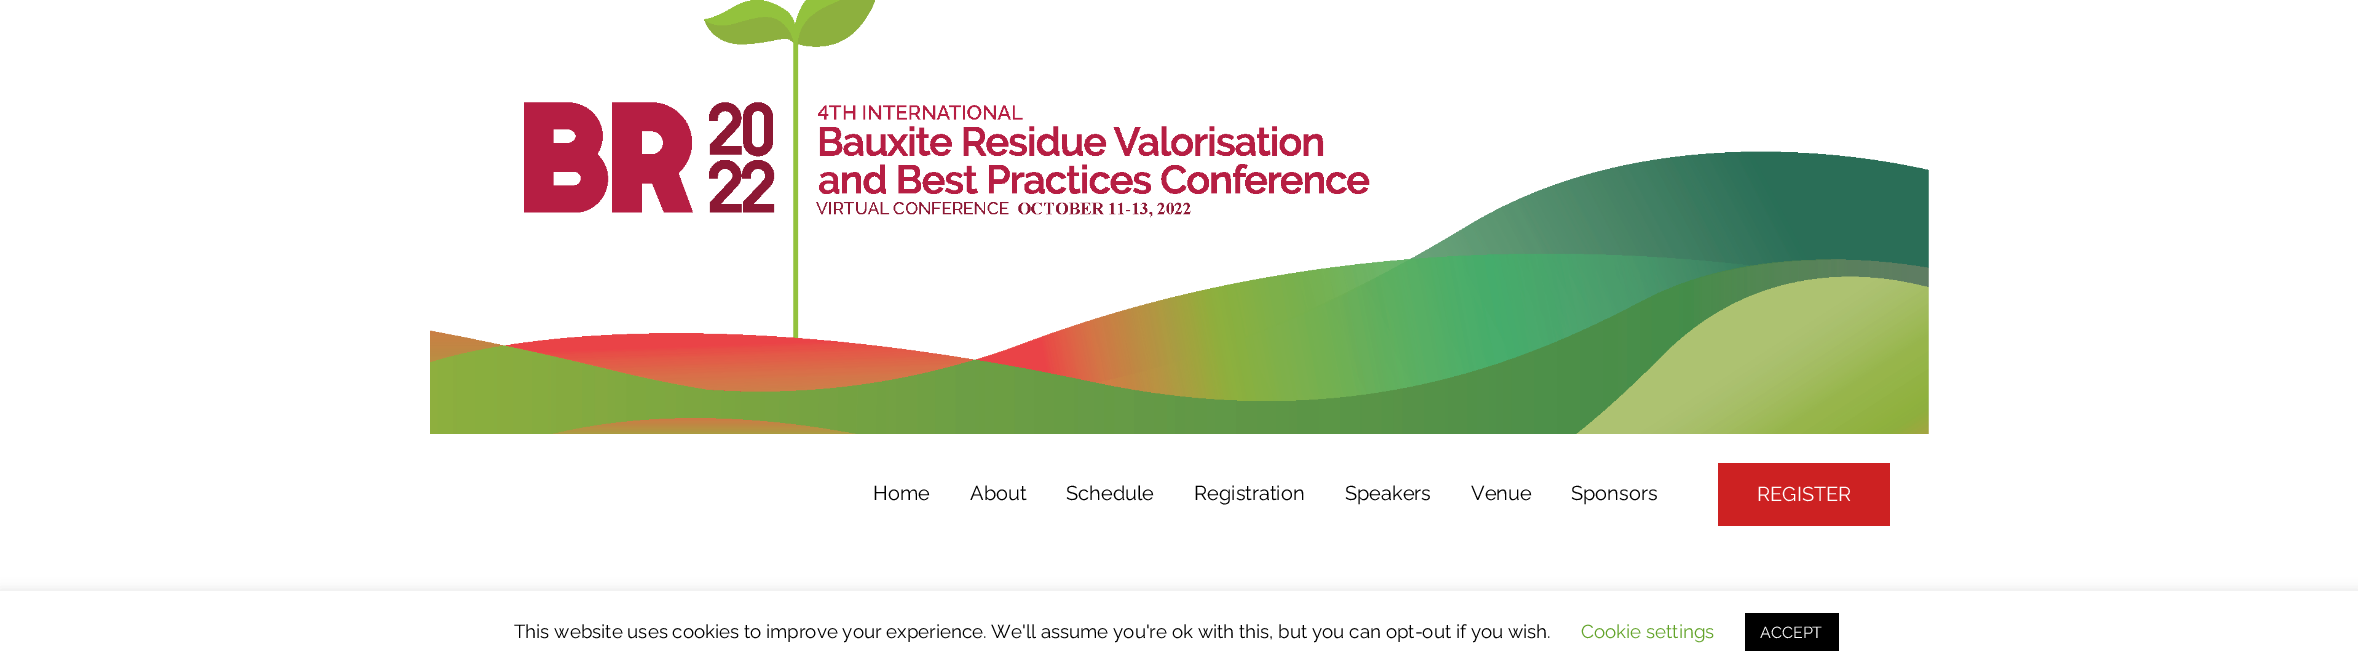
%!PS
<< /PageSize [2358 672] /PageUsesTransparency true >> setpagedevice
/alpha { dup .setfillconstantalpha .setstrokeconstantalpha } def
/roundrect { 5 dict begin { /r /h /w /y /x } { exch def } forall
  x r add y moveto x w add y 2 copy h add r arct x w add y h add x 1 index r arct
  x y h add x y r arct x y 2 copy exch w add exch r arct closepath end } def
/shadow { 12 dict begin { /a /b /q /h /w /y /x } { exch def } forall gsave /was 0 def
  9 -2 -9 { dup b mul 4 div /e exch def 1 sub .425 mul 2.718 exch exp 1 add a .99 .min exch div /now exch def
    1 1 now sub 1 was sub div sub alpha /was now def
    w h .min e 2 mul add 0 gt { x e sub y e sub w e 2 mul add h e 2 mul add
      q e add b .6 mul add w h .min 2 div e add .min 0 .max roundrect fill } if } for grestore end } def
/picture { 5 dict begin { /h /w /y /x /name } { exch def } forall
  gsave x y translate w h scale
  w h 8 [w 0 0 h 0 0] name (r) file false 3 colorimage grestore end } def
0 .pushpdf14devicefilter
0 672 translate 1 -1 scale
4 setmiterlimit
1 setgray
0 0 2358 672 rectfill
(img1.rgb) 430 0 1499 434 picture
/Raleway-Thin [20 0 0 -20 0 0] selectfont
0 setgray
873 500 moveto (Home) show
970 500 moveto (About) show
1066 500 moveto (Schedule) show
1194 500 moveto (Registration) show
1345 500 moveto (Speakers) show
1471 500 moveto (Venue) show
1571 500 moveto (Sponsors) show
0.804 0.129 0.133 setrgbcolor
1718 463 172 63 rectfill
1 setgray
1757 501 moveto (REGISTER) show
0.675 0.671 0.671 setrgbcolor
0 590 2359 81 0 6 0.3 shadow
1 setgray
0 591 2358 81 rectfill
/Raleway-Thin [18.75 0 0 -18.75 0 0] selectfont
0 setgray
514 638 moveto (This website uses cookies to improve your experience. We'll assume you're ok with this, but you can opt-out if you wish.) show
0.384 0.639 0.161 setrgbcolor
1581 638 moveto (Cookie settings) show
0 setgray
1745 613 94 38 rectfill
/Raleway-Thin [16 0 0 -16 0 0] selectfont
1 setgray
1760 638 moveto (ACCEPT) show
.poppdf14devicefilter showpage
